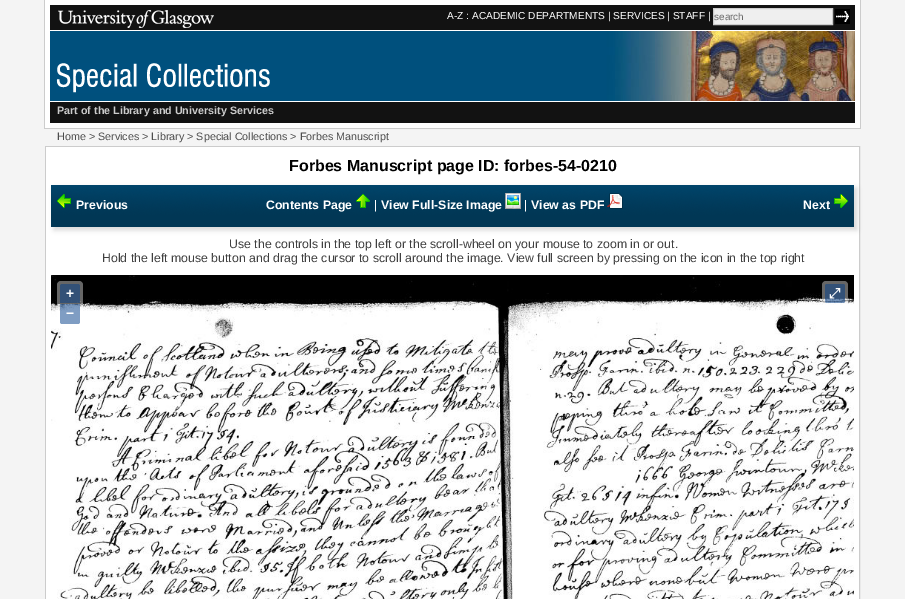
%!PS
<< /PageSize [905 599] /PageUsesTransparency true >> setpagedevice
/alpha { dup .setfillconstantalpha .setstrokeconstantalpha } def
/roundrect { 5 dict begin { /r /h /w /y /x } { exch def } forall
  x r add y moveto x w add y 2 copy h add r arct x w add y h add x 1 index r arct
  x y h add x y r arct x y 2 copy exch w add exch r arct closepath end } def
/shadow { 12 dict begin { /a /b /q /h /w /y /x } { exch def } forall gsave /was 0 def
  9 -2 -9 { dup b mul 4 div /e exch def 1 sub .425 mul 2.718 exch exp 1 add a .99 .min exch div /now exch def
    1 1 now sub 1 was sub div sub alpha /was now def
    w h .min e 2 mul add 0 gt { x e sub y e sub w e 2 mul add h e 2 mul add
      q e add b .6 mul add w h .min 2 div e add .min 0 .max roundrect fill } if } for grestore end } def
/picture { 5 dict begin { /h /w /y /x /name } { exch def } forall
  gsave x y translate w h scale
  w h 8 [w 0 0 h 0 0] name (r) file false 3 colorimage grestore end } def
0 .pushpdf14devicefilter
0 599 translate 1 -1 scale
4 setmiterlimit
0.957 setgray
0 0 905 599 rectfill
1 setgray
45 0 815 128 rectfill
0.8 setgray
860 0 1 129 rectfill
44 128 817 1 rectfill
44 0 1 129 rectfill
0.071 setgray
50 5 805 25 rectfill
(img1.rgb) 58 10 156 18 picture
/LiberationSans-Regular [10.15 0 0 -10.15 0 0] selectfont
1 setgray
447 19 moveto (A-Z : ACADEMIC DEPARTMENTS | SERVICES | STAFF |) show
0.937 setgray
newpath 713.5 8.5 moveto 832.5 8.5 lineto 832.5 24.5 lineto 713.5 24.5 lineto closepath gsave fill grestore
0.8 setgray
stroke
/LiberationSans-Regular [10 0 0 -10 0 0] selectfont
0.4 setgray
714 20 moveto (search) show
(img2.rgb) 835 9 15 15 picture
(img3.rgb) 50 31 805 70 picture
(img4.rgb) 56 63 214 30 picture
0.071 setgray
50 102 805 21 rectfill
/LiberationSans-Bold [10.75 0 0 -10.75 0 0] selectfont
0.8 setgray
57 114 moveto (Part of the Library and University Services) show
/LiberationSans-Regular [10.75 0 0 -10.75 0 0] selectfont
0.298 setgray
57 140 moveto (Home > Services > Library > Special Collections > Forbes Manuscript) show
0.8 setgray
45.5 146.5 814 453 rectstroke
1 setgray
46 147 813 452 rectfill
/LiberationSans-Bold [16 0 0 -16 0 0] selectfont
0 setgray
289 171 moveto (Forbes Manuscript page ID: forbes-54-0210) show
54 188 803 42 0 2.5 0.15 shadow
(img5.rgb) 51 185 803 42 picture
(img6.rgb) 57 194 14 14 picture
/LiberationSans-Bold [12.3 0 0 -12.3 0 0] selectfont
1 setgray
76 209 moveto (Previous) show
266 209 moveto (Contents Page) show
(img7.rgb) 356 194 14 14 picture
/LiberationSans-Regular [12.3 0 0 -12.3 0 0] selectfont
374 209 moveto (|) show
/LiberationSans-Bold [12.3 0 0 -12.3 0 0] selectfont
381 209 moveto (View Full-Size Image) show
(img8.rgb) 505 193 16 16 picture
/LiberationSans-Regular [12.3 0 0 -12.3 0 0] selectfont
524 209 moveto (|) show
/LiberationSans-Bold [12.3 0 0 -12.3 0 0] selectfont
531 209 moveto (View as PDF) show
(img9.rgb) 607 193 16 16 picture
803 209 moveto (Next) show
(img10.rgb) 834 194 14 14 picture
/LiberationSans-Regular [12.3 0 0 -12.3 0 0] selectfont
0.251 setgray
229 248 moveto (Use the controls in the top left or the scroll-wheel on your mouse to zoom in or out.) show
102 262 moveto (Hold the left mouse button and drag the cursor to scroll around the image. View full screen by pressing on the icon in the top right) show
(img11.rgb) 51 275 803 324 picture
0.4 alpha
1 setgray
57 281 26 46 4 roundrect fill
0.5 alpha
0 0.235 0.533 setrgbcolor
newpath 62 284 moveto 78 284 lineto 79 284 80 285 80 286 curveto 80 303 lineto 60 303 lineto 60 286 lineto 60 285 61 284 62 284 curveto closepath fill
/LiberationSans-Bold [14 0 0 -14 0 0] selectfont
1 alpha
1 setgray
66 298 moveto (+) show
0.5 alpha
0 0.235 0.533 setrgbcolor
newpath 60 304 moveto 80 304 lineto 80 322 lineto 80 323 79 324 78 324 curveto 62 324 lineto 61 324 60 323 60 322 curveto closepath fill
1 alpha
1 setgray
66 318 moveto (−) show
0.4 alpha
822 281 26 25 4 roundrect fill
0.5 alpha
0 0.235 0.533 setrgbcolor
825 284 20 19 2 roundrect fill
/FreeSerif-Bold [14 0 0 -14 0 0] selectfont
1 alpha
1 setgray
829 298 moveto (⤢) show
.poppdf14devicefilter showpage
